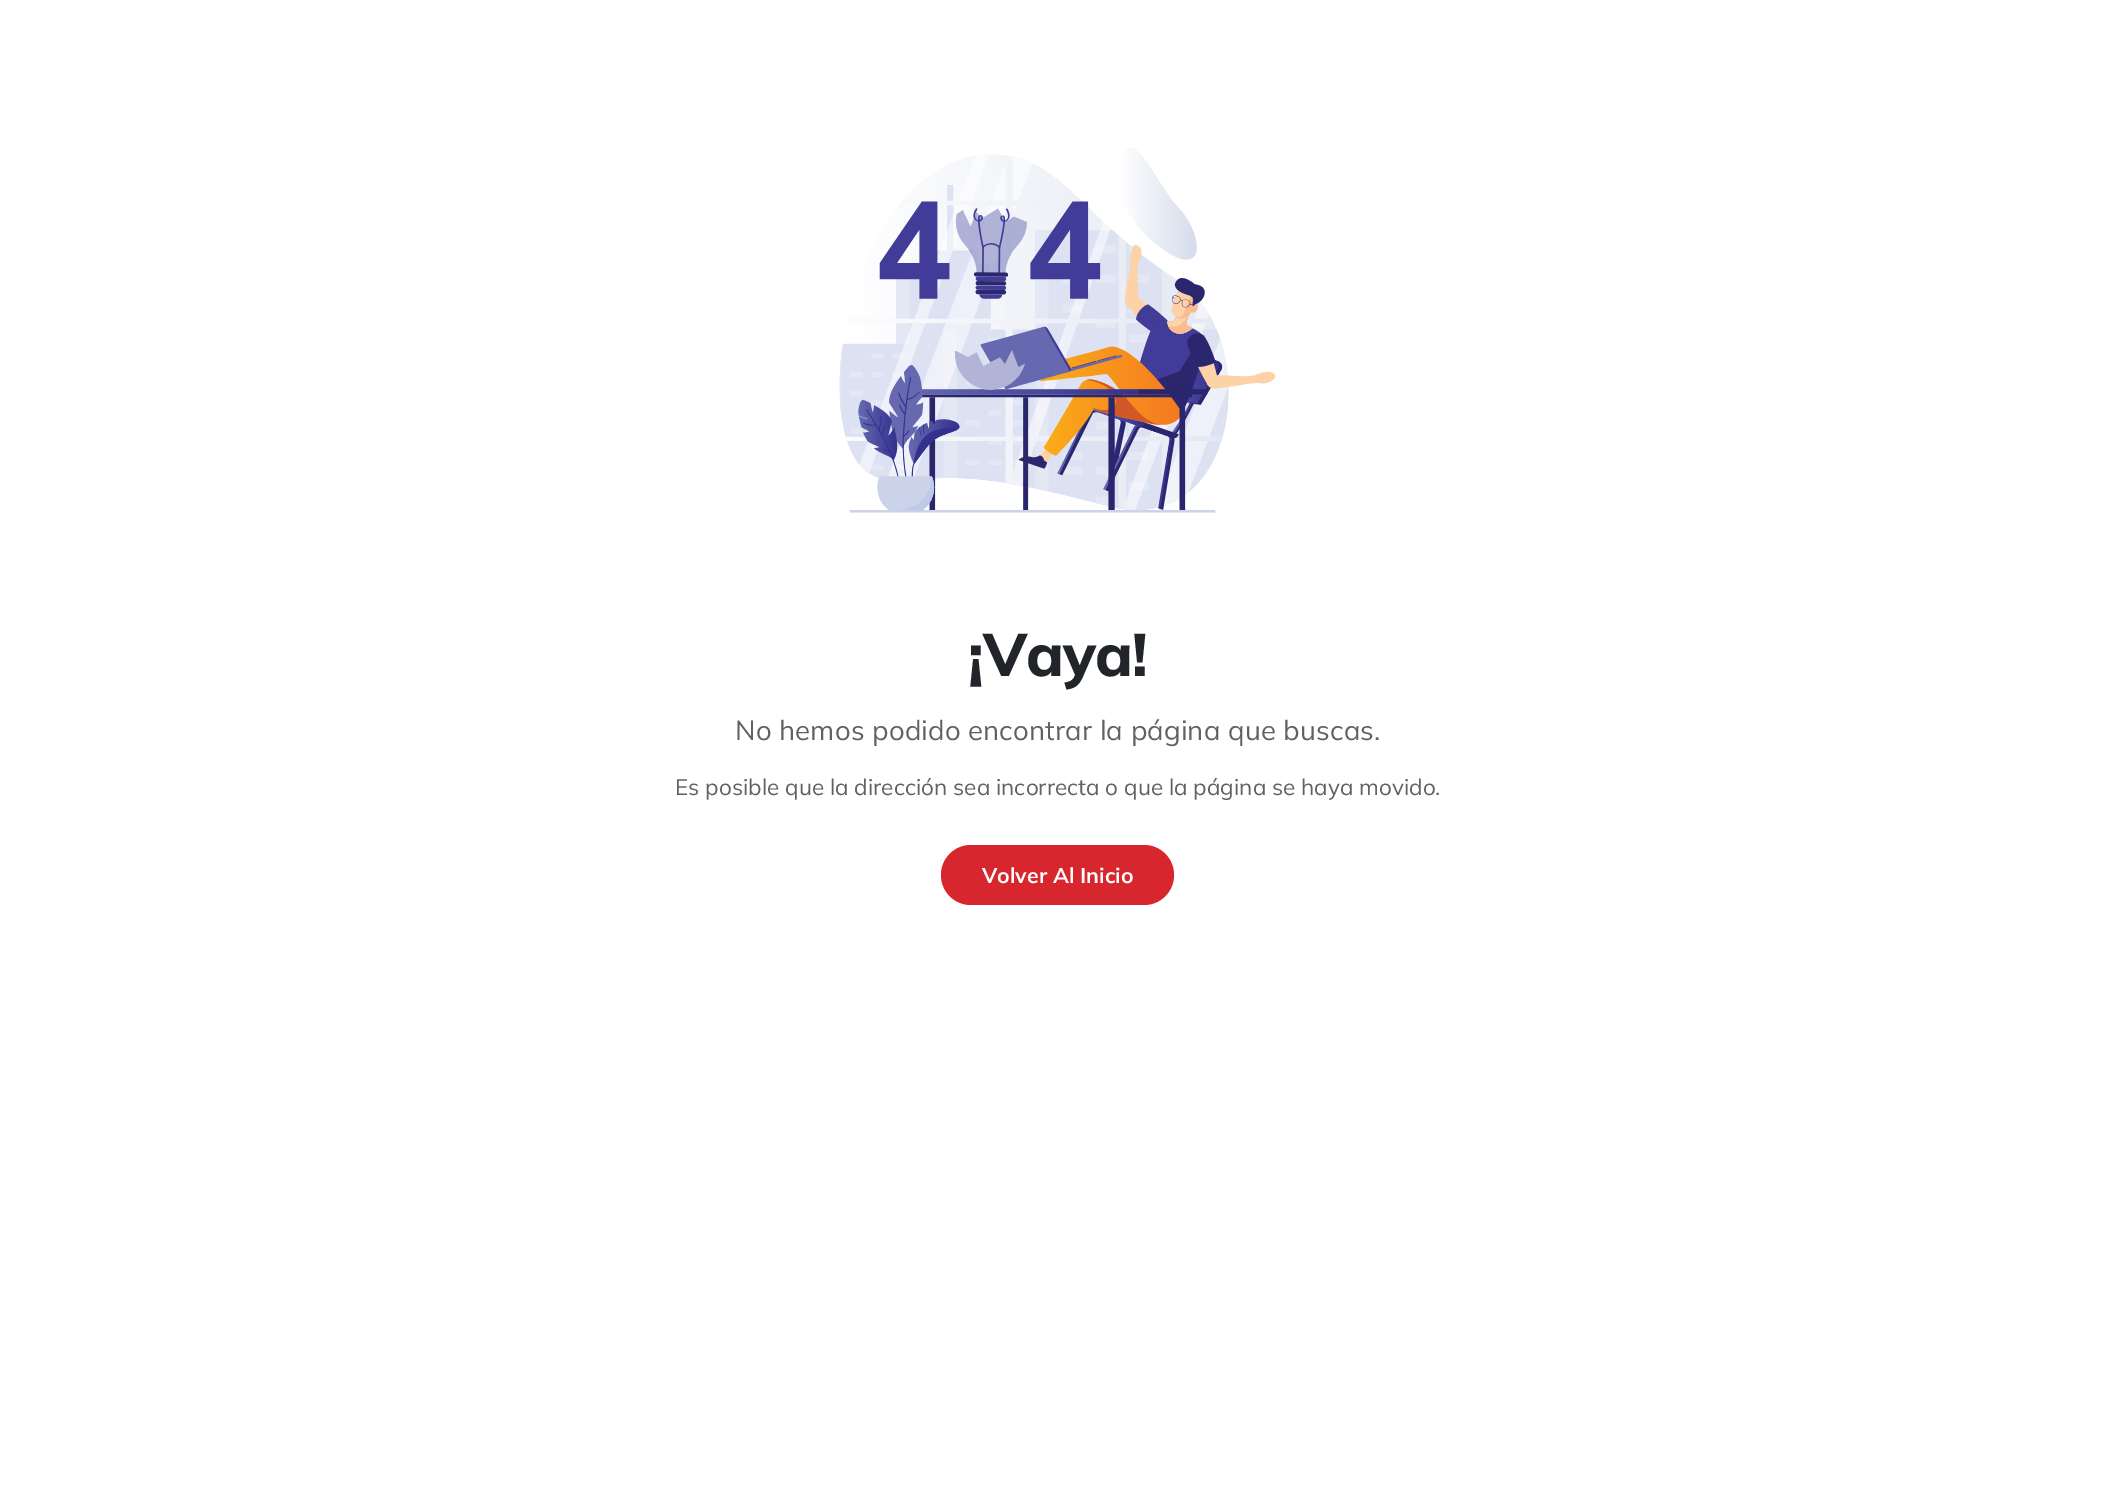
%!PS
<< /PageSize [2114 1500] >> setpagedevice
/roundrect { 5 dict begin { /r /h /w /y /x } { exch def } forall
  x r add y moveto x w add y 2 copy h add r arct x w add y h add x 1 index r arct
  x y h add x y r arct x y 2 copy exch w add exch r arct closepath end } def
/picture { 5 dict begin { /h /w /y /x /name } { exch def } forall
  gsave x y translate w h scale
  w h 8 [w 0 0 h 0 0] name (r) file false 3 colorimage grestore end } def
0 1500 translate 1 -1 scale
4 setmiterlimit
1 setgray
0 0 2114 1500 rectfill
(img1.rgb) 839 148 437 365 picture
/Mulish-ExtraBold [60 0 0 -60 0 0] selectfont
0.129 0.145 0.161 setrgbcolor
968 676 moveto -1 0 (¡Vaya!) ashow
/Mulish-Regular [27.5 0 0 -27.5 0 0] selectfont
0.38 setgray
735 740 moveto 0.2 0 (No hemos podido encontrar la página que buscas.) ashow
/Mulish-Regular [22.5 0 0 -22.5 0 0] selectfont
675 795 moveto (Es posible que la dirección sea incorrecta o que la página se haya movido.) show
0.847 0.149 0.18 setrgbcolor
941 845 233 60 30 roundrect fill
/Mulish-Bold [21.25 0 0 -21.25 0 0] selectfont
1 setgray
982 883 moveto (Volver Al Inicio) show
showpage
